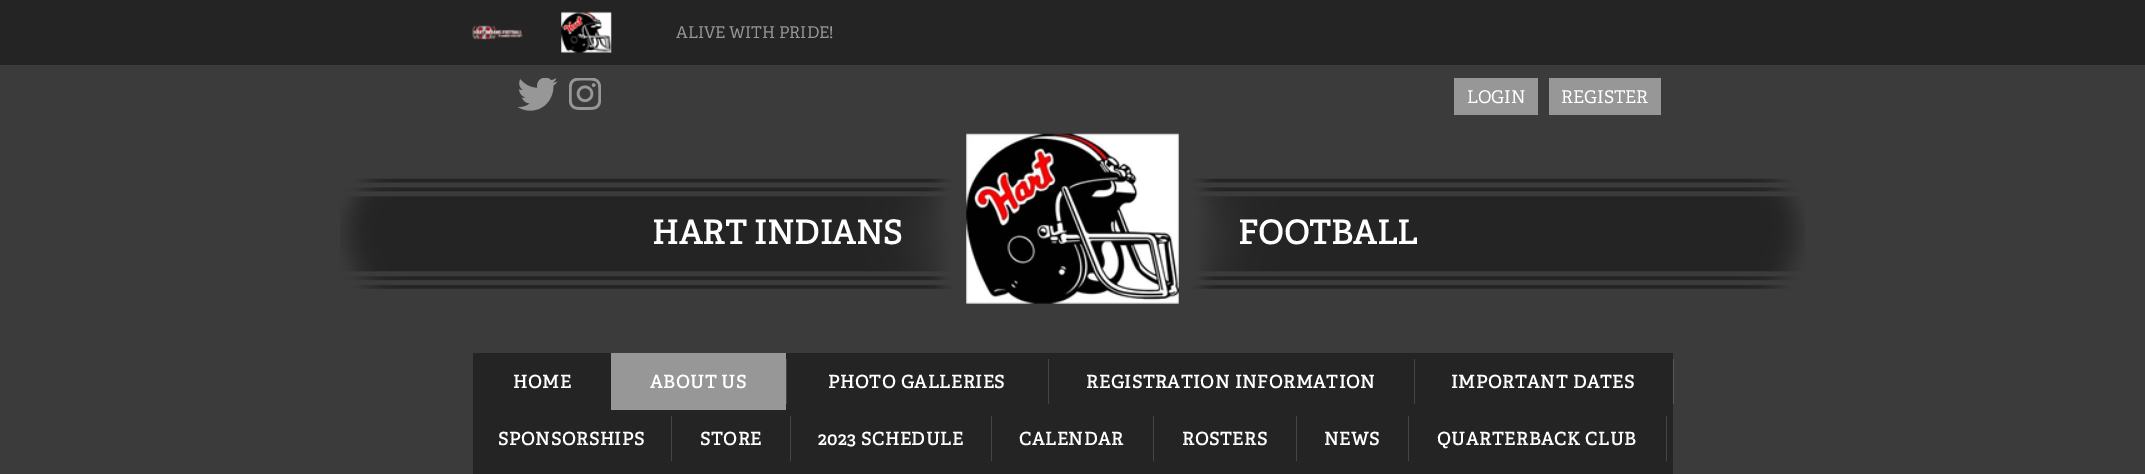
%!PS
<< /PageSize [2145 474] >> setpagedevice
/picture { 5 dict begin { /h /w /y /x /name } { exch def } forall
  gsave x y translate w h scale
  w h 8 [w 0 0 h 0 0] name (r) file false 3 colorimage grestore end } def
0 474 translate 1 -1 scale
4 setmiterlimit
0.231 setgray
0 0 2145 474 rectfill
0.141 setgray
0 0 2145 65 rectfill
(img1.rgb) 472 25 51 15 picture
(img2.rgb) 561 11 51 42 picture
/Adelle-Regular [16.25 0 0 -16.25 0 0] selectfont
0.592 setgray
676 38 moveto (ALIVE WITH PRIDE!) show
(img3.rgb) 518 78 40 33 picture
(img4.rgb) 569 78 32 32 picture
1454 78 84 37 rectfill
/Adelle-Regular [17.5 0 0 -17.5 0 0] selectfont
1 setgray
1467 103 moveto (LOGIN) show
0.592 setgray
1549 78 112 37 rectfill
1 setgray
1561 103 moveto (REGISTER) show
(img5.rgb) 340 178 1465 111 picture
(img6.rgb) 966 133 213 171 picture
/Adelle-Bold [32.5 0 0 -32.5 0 0] selectfont
652 244 moveto 0.4 0 (HART INDIANS) ashow
1238 244 moveto 0.4 0 (FOOTBALL) ashow
0.141 setgray
473 353 1200 121 rectfill
/Adelle-Bold [17.5 0 0 -17.5 0 0] selectfont
1 setgray
513 388 moveto 0.75 0 (HOME) ashow
0.592 setgray
611 353 175 57 rectfill
1 setgray
650 388 moveto 0.75 0 (ABOUT US) ashow
0.271 setgray
786 359 1 45 rectfill
1 setgray
828 388 moveto 0.75 0 (PHOTO GALLERIES) ashow
0.271 setgray
1048 359 1 45 rectfill
1 setgray
1086 388 moveto 0.75 0 (REGISTRATION INFORMATION) ashow
0.271 setgray
1414 359 1 45 rectfill
1 setgray
1451 388 moveto 0.75 0 (IMPORTANT DATES) ashow
0.349 setgray
1673 359 1 45 rectfill
1 setgray
498 445 moveto 0.75 0 (SPONSORSHIPS) ashow
0.271 setgray
671 416 1 45 rectfill
1 setgray
700 445 moveto 0.75 0 (STORE) ashow
0.271 setgray
790 416 1 45 rectfill
1 setgray
818 445 moveto 0.75 0 (2023 SCHEDULE) ashow
0.271 setgray
991 416 1 45 rectfill
1 setgray
1019 445 moveto 0.75 0 (CALENDAR) ashow
0.271 setgray
1153 416 1 45 rectfill
1 setgray
1182 445 moveto 0.75 0 (ROSTERS) ashow
0.271 setgray
1296 416 1 45 rectfill
1 setgray
1324 445 moveto 0.75 0 (NEWS) ashow
0.271 setgray
1408 416 1 45 rectfill
1 setgray
1437 445 moveto 0.75 0 (QUARTERBACK CLUB) ashow
0.271 setgray
1666 416 1 45 rectfill
showpage
